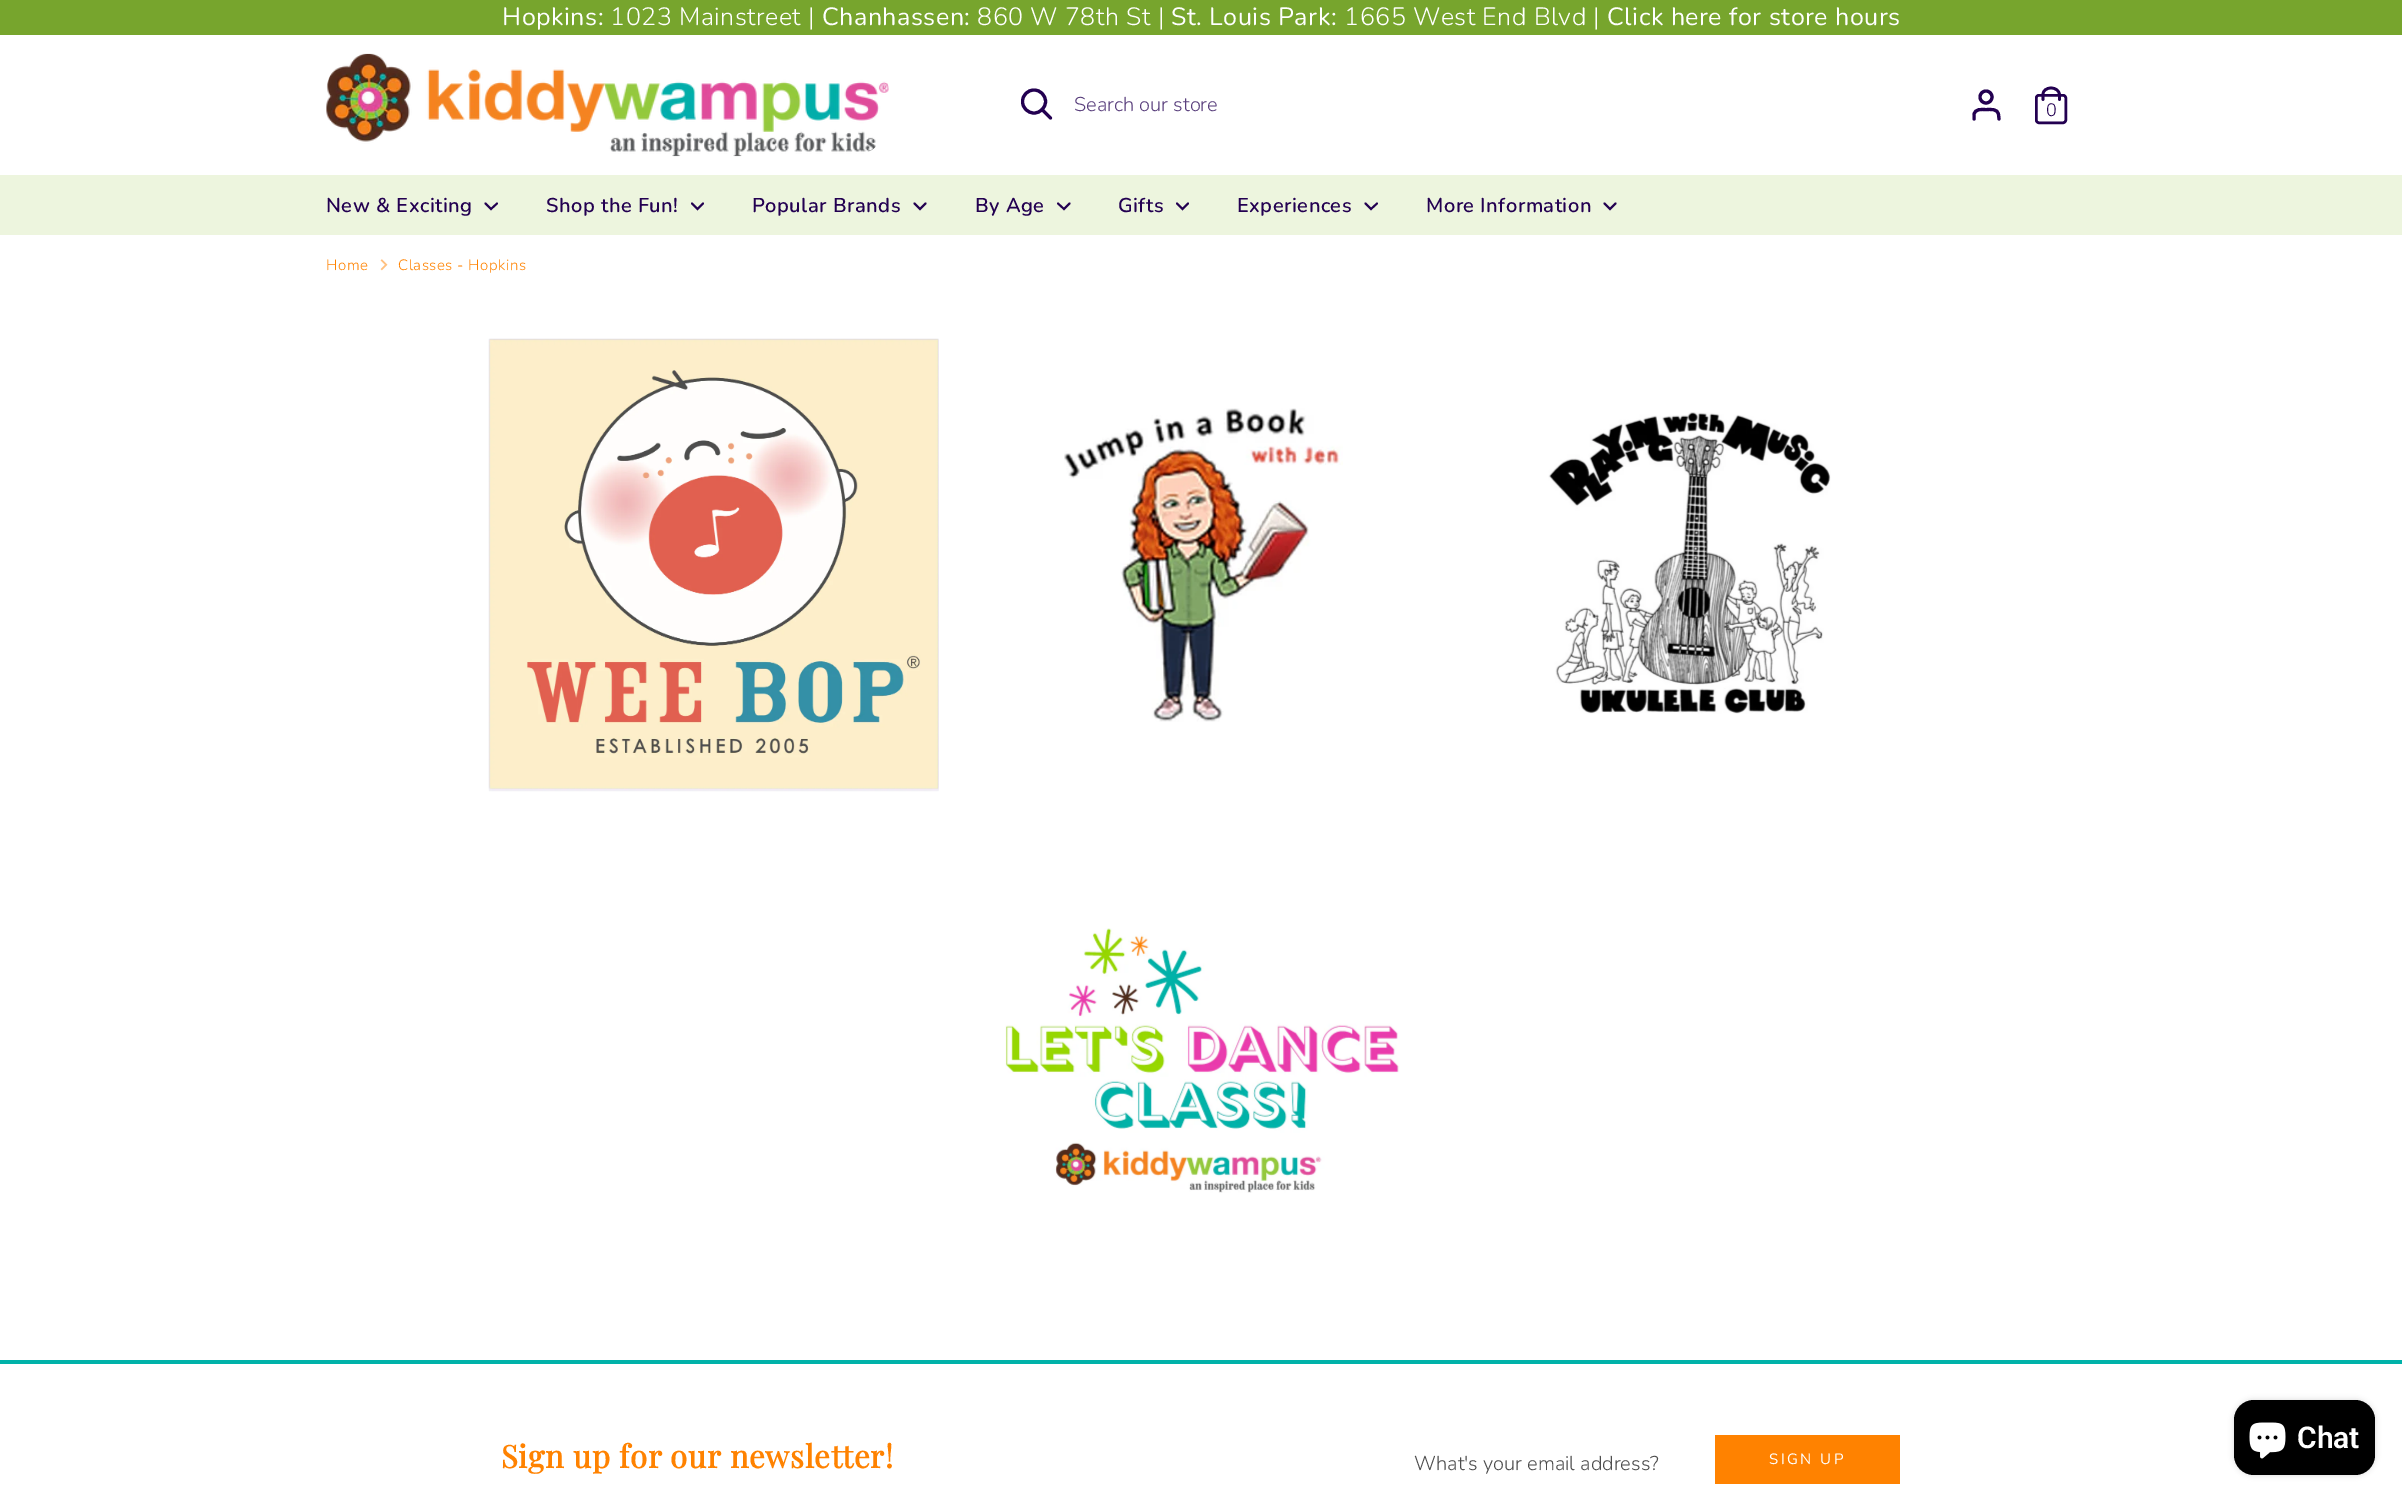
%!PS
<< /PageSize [2402 1501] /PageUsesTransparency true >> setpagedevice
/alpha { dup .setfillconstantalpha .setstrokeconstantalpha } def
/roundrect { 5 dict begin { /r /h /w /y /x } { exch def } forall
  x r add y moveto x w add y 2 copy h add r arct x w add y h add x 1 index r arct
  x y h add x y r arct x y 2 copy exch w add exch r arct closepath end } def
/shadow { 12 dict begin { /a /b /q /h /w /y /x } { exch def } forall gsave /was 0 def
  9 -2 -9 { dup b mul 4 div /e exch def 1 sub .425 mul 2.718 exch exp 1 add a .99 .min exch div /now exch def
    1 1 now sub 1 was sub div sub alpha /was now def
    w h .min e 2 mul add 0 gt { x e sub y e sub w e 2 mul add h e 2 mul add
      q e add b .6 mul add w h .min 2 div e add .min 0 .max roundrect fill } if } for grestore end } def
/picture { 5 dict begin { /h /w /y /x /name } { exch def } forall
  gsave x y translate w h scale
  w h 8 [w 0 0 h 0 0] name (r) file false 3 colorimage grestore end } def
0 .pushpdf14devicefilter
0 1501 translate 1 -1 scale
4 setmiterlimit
1 setgray
0 0 2402 1501 rectfill
0.467 0.647 0.176 setrgbcolor
0 0 2402 35 rectfill
/Nunito-Regular [25 0 0 -25 0 0] selectfont
1 setgray
502 25 moveto 0.5 0 (Hopkins:) ashow
/Nunito-Light [25 0 0 -25 0 0] selectfont
610 25 moveto 0.5 0 (1023 Mainstreet |) ashow
/Nunito-Regular [25 0 0 -25 0 0] selectfont
822 25 moveto 0.5 0 (Chanhassen:) ashow
/Nunito-Light [25 0 0 -25 0 0] selectfont
977 25 moveto 0.5 0 (860 W 78th St |) ashow
/Nunito-Regular [25 0 0 -25 0 0] selectfont
1171 25 moveto 0.5 0 (St. Louis Park:) ashow
/Nunito-Light [25 0 0 -25 0 0] selectfont
1344 25 moveto 0.5 0 (1665 West End Blvd |) ashow
/Nunito-Regular [25 0 0 -25 0 0] selectfont
1607 25 moveto 0.5 0 (Click here for store hours) ashow
(img1.rgb) 326 53 563 104 picture
0.137 0 0.318 setrgbcolor
3.1 setlinewidth
newpath 1034 101.5 11.5 0 360 arc closepath stroke
1 setlinecap
newpath 1050.5 118 moveto 1042 109.5 lineto stroke
/Nunito-Light [20 0 0 -20 0 0] selectfont
0.353 0.251 0.49 setrgbcolor
1074 111 moveto (Search our store) show
0.137 0 0.318 setrgbcolor
newpath 1999 119 moveto 1998.5 114.5 lineto 1997.5 108.5 1991 109.5 1986 109.5 curveto 1981.5 109.5 1975 108.5 1974 114.5 curveto 1974 119 lineto stroke
0 setlinecap
newpath 1986 97 6 0 360 arc closepath stroke
2.5 setlinewidth
2036.25 95.25 29.5 27.5 2.75 roundrect stroke
2.7 setlinewidth
1 setlinecap
newpath 2043 99.5 moveto 2043 94.5 lineto 2043 90.5 2046.5 88 2051 88 curveto 2055.5 88 2059 90.5 2059.5 94.5 curveto 2059.5 99.5 lineto stroke
/Nunito-Light [18 0 0 -18 0 0] selectfont
2046 116 moveto (0) show
0.929 0.961 0.871 setrgbcolor
0 175 2402 60 rectfill
/Nunito-SemiBold [20 0 0 -20 0 0] selectfont
0.137 0 0.318 setrgbcolor
326 212 moveto 0.5 0 (New & Exciting) ashow
1.9 setlinewidth
newpath 485.5 203.5 moveto 491 209 lineto 497 203.5 lineto stroke
546 212 moveto 0.5 0 (Shop the Fun!) ashow
newpath 692 203.5 moveto 697.5 209 lineto 703 203.5 lineto stroke
752 212 moveto 0.5 0 (Popular Brands) ashow
newpath 914.5 203.5 moveto 920 209 lineto 925.5 203.5 lineto stroke
975 212 moveto 0.5 0 (By Age) ashow
newpath 1058 203.5 moveto 1064 209 lineto 1069.5 203.5 lineto stroke
1118 212 moveto 0.5 0 (Gifts) ashow
newpath 1177 203.5 moveto 1182.5 209 lineto 1188 203.5 lineto stroke
1237 212 moveto 0.5 0 (Experiences) ashow
newpath 1365.5 203.5 moveto 1371 209 lineto 1377 203.5 lineto stroke
1426 212 moveto 0.5 0 (More Information) ashow
newpath 1604.5 203.5 moveto 1610 209 lineto 1615.5 203.5 lineto stroke
/Nunito-Light [15 0 0 -15 0 0] selectfont
1 0.51 0 setrgbcolor
326 270 moveto 0.5 0 (Home) ashow
(img2.rgb) 380 259 8 12 picture
398 270 moveto 0.5 0 (Classes - Hopkins) ashow
(img3.rgb) 488 338 451 454 picture
(img4.rgb) 1064 408 279 314 picture
(img5.rgb) 1548 412 283 302 picture
(img6.rgb) 1005 928 395 265 picture
0 setgray
2234 1400 141 75 20 3 0.15 shadow
2234 1400 141 75 20 roundrect fill
(img7.rgb) 2249 1422 37 37 picture
/Roboto-SemiBold [30 0 0 -30 0 0] selectfont
1 setgray
2297 1448 moveto (Chat) show
0 0.698 0.663 setrgbcolor
0 1360 2402 4 rectfill
/PlayfairDisplay-Bold [31.25 0 0 -31.25 0 0] selectfont
1 0.51 0 setrgbcolor
501 1468 moveto 0.6 0 (Sign up for our newsletter!) ashow
/Nunito-Light [20 0 0 -20 0 0] selectfont
0.302 setgray
1414 1470 moveto (What's your email address?) show
1 0.51 0 setrgbcolor
1715 1435 185 49 rectfill
/Nunito-Regular [15 0 0 -15 0 0] selectfont
1 setgray
1769 1464 moveto 2.5 0 (SIGN UP) ashow
.poppdf14devicefilter showpage
